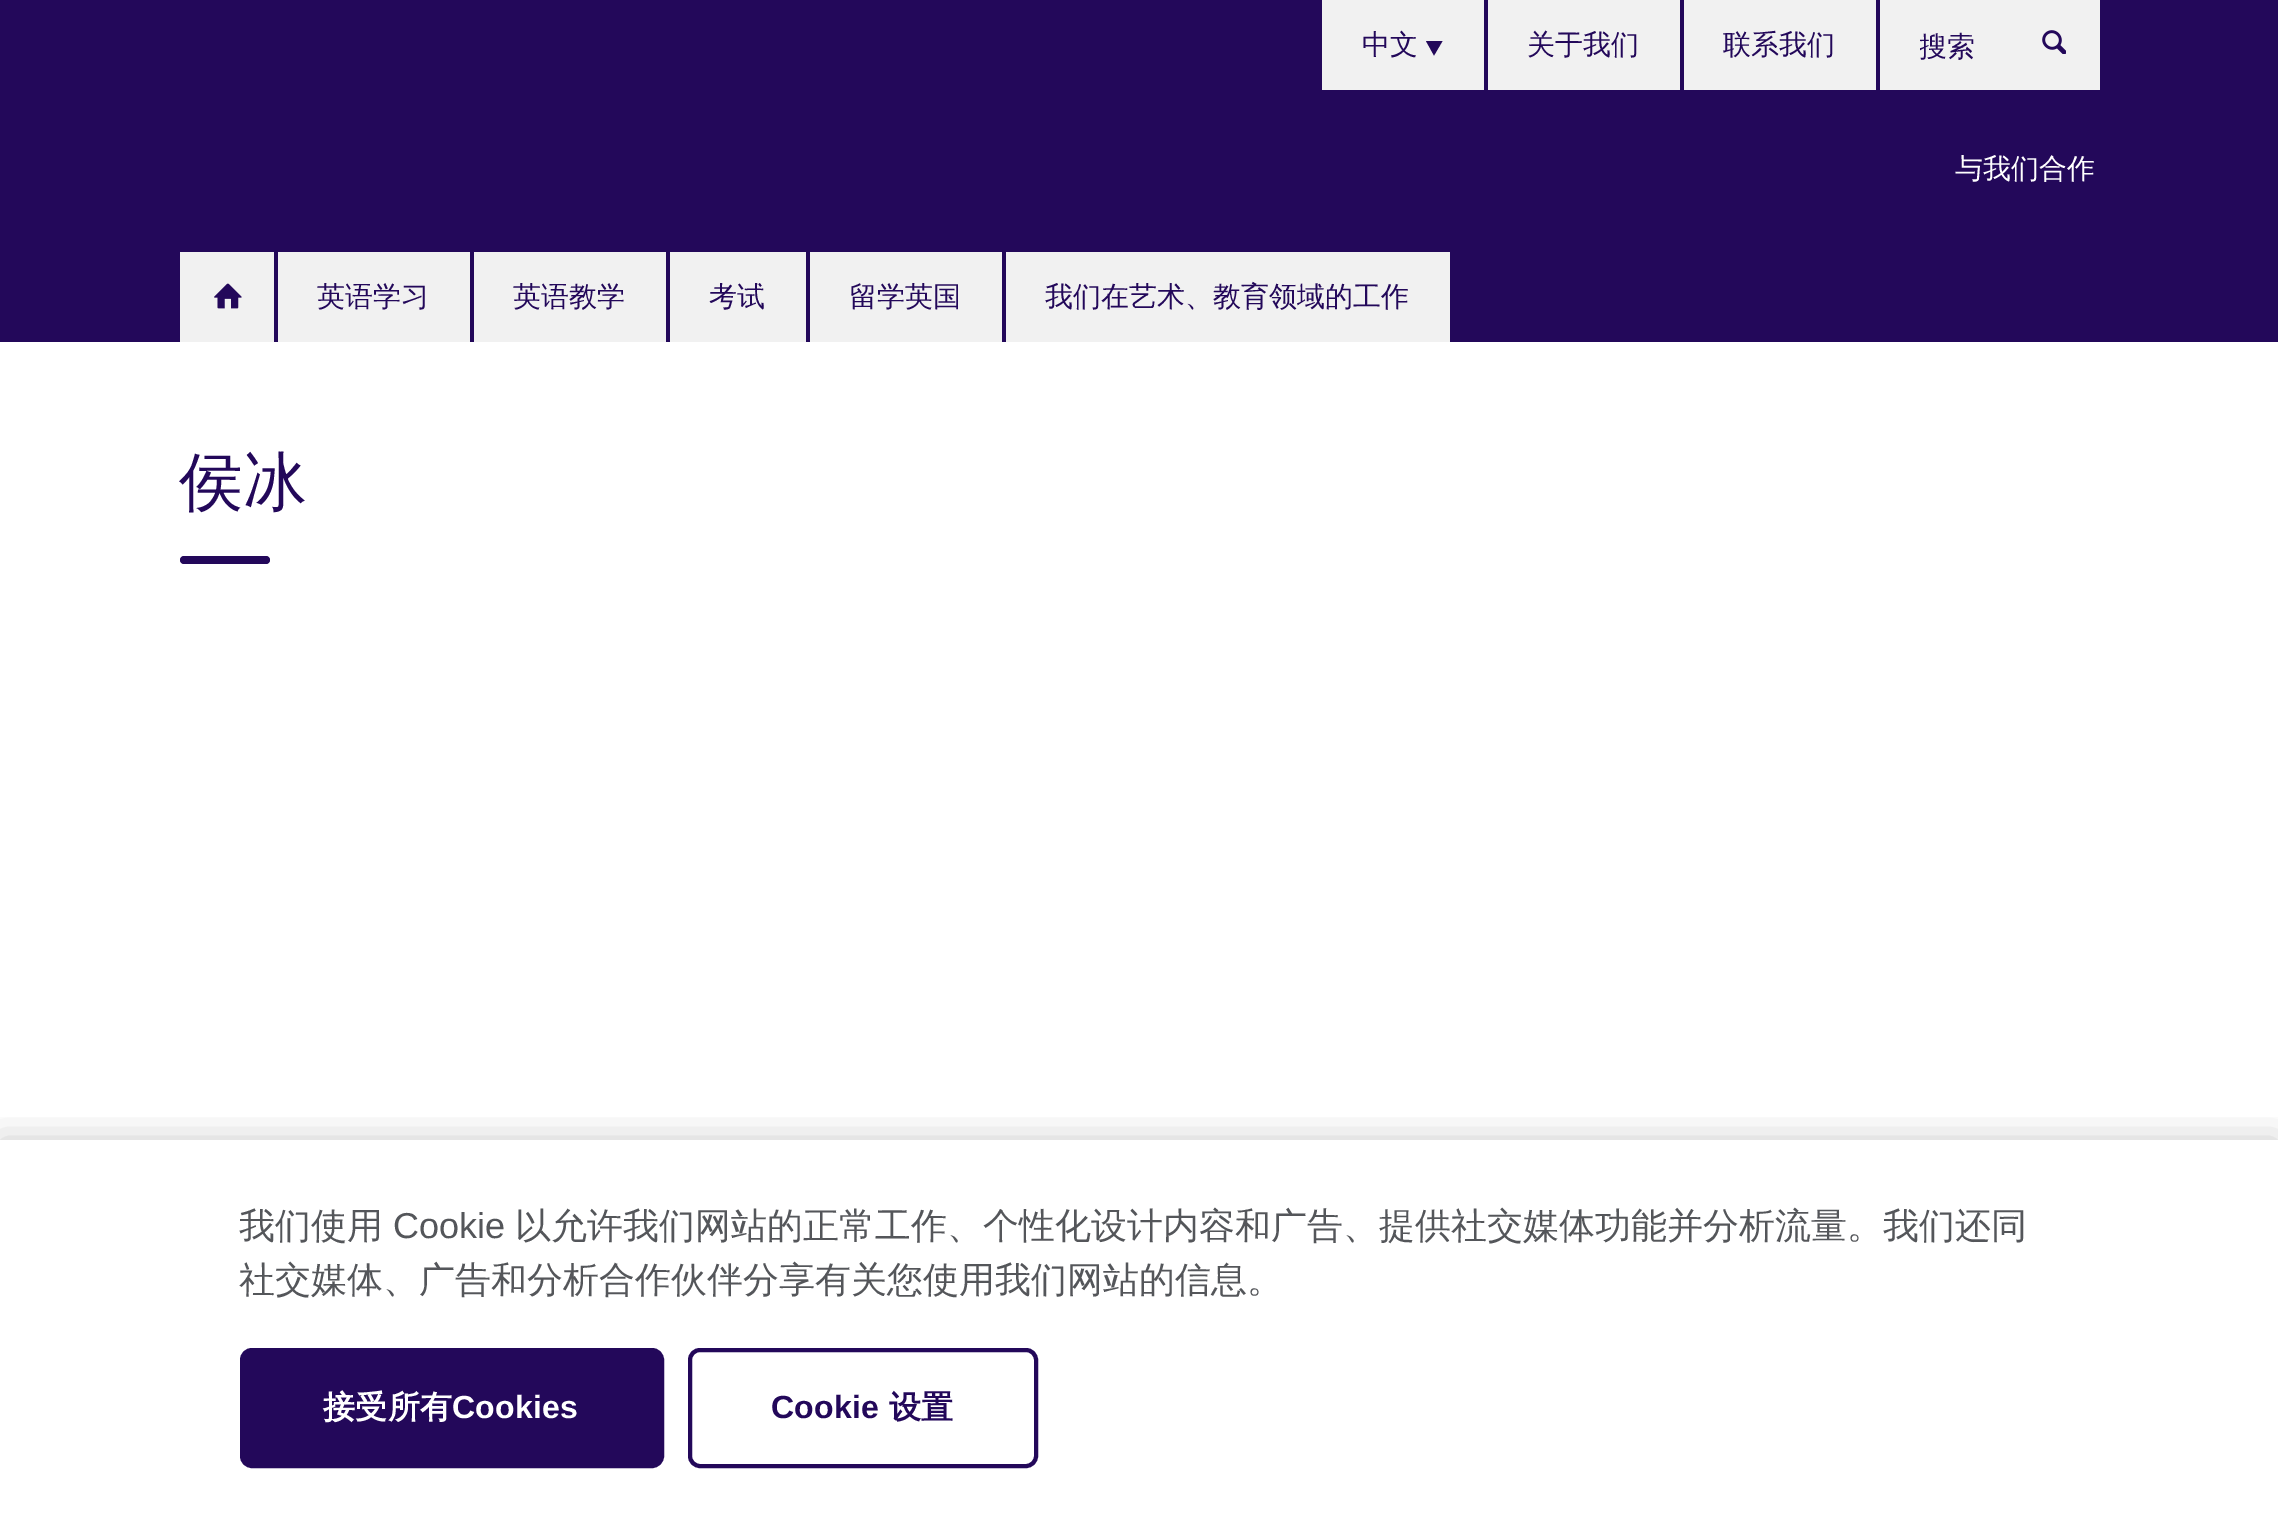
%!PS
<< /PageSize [2278 1535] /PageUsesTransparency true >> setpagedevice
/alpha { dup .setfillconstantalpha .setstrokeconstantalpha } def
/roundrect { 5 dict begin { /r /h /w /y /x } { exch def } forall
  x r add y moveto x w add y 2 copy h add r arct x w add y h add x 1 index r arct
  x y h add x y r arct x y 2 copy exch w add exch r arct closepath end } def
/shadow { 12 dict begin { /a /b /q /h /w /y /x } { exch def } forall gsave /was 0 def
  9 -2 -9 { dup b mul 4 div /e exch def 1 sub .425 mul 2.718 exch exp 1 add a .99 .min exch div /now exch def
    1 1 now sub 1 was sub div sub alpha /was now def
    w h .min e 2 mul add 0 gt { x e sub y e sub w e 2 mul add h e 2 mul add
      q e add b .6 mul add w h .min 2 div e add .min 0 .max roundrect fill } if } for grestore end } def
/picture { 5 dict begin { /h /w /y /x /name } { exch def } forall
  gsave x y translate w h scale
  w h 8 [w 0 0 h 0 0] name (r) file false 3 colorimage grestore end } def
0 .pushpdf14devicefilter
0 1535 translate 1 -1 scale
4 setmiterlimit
1 setgray
0 0 2278 1535 rectfill
0.137 0.031 0.353 setrgbcolor
0 0 2278 342 rectfill
0.945 setgray
1322 0 162 90 rectfill
/WenQuanYiZenHei-Medium [28 0 0 -28 0 0] selectfont
0.137 0.031 0.353 setrgbcolor
1362 54 moveto (中文) show
newpath 1442.5 41 moveto 1426 41 lineto 1434 55.5 lineto 1442.5 41 lineto eofill
0.945 setgray
1488 0 192 90 rectfill
0.137 0.031 0.353 setrgbcolor
1527 54 moveto (关于我们) show
0.945 setgray
1684 0 192 90 rectfill
0.137 0.031 0.353 setrgbcolor
1723 54 moveto (联系我们) show
0.945 setgray
1880 0 220 90 rectfill
gsave
1920 30 130 36 rectclip
0.137 0.031 0.353 setrgbcolor
1919 56 moveto (搜索) show
grestore
(img1.rgb) 2042 30 24 24 picture
1 setgray
1955 178 moveto (与我们合作) show
0.945 setgray
180 252 94 90 rectfill
(img2.rgb) 214 283 28 26 picture
278 252 192 90 rectfill
0.137 0.031 0.353 setrgbcolor
317 306 moveto (英语学习) show
0.945 setgray
474 252 192 90 rectfill
0.137 0.031 0.353 setrgbcolor
513 306 moveto (英语教学) show
0.945 setgray
670 252 136 90 rectfill
0.137 0.031 0.353 setrgbcolor
709 306 moveto (考试) show
0.945 setgray
810 252 192 90 rectfill
0.137 0.031 0.353 setrgbcolor
849 306 moveto (留学英国) show
0.945 setgray
1006 252 444 90 rectfill
0.137 0.031 0.353 setrgbcolor
1045 306 moveto (我们在艺术、教育领域的工作) show
/WenQuanYiZenHei-Medium [64 0 0 -64 0 0] selectfont
179 504 moveto (侯冰) show
180 556 90 8 4 roundrect fill
gsave
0 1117 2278 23 rectclip
0 setgray
0 1140 2278 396 0 18 0.2 shadow
grestore
/WenQuanYiZenHei-Medium [36 0 0 -36 0 0] selectfont
0.329 0.337 0.353 setrgbcolor
239 1238 moveto (我们使用) show
/LiberationSans-Regular [36 0 0 -36 0 0] selectfont
393 1238 moveto (Cookie) show
/WenQuanYiZenHei-Medium [36 0 0 -36 0 0] selectfont
515 1238 moveto (以允许我们网站的正常工作、个性化设计内容和广告、提供社交媒体功能并分析流量。我们还同) show
239 1292 moveto (社交媒体、广告和分析合作伙伴分享有关您使用我们网站的信息。) show
0.137 0.031 0.353 setrgbcolor
242 1350 420 116 10 roundrect gsave fill grestore
4 setlinewidth
stroke
/WenQuanYiZenHei-Bold [32 0 0 -32 0 0] selectfont
1 setgray
323 1418 moveto 0.25 0 (接受所有) ashow
/LiberationSans-Bold [32 0 0 -32 0 0] selectfont
452 1418 moveto 0.25 0 (Cookies) ashow
0.137 0.031 0.353 setrgbcolor
690 1350 346 116 10 roundrect stroke
771 1418 moveto 0.25 0 (Cookie) ashow
/WenQuanYiZenHei-Bold [32 0 0 -32 0 0] selectfont
889 1418 moveto 0.25 0 (设置) ashow
.poppdf14devicefilter showpage
